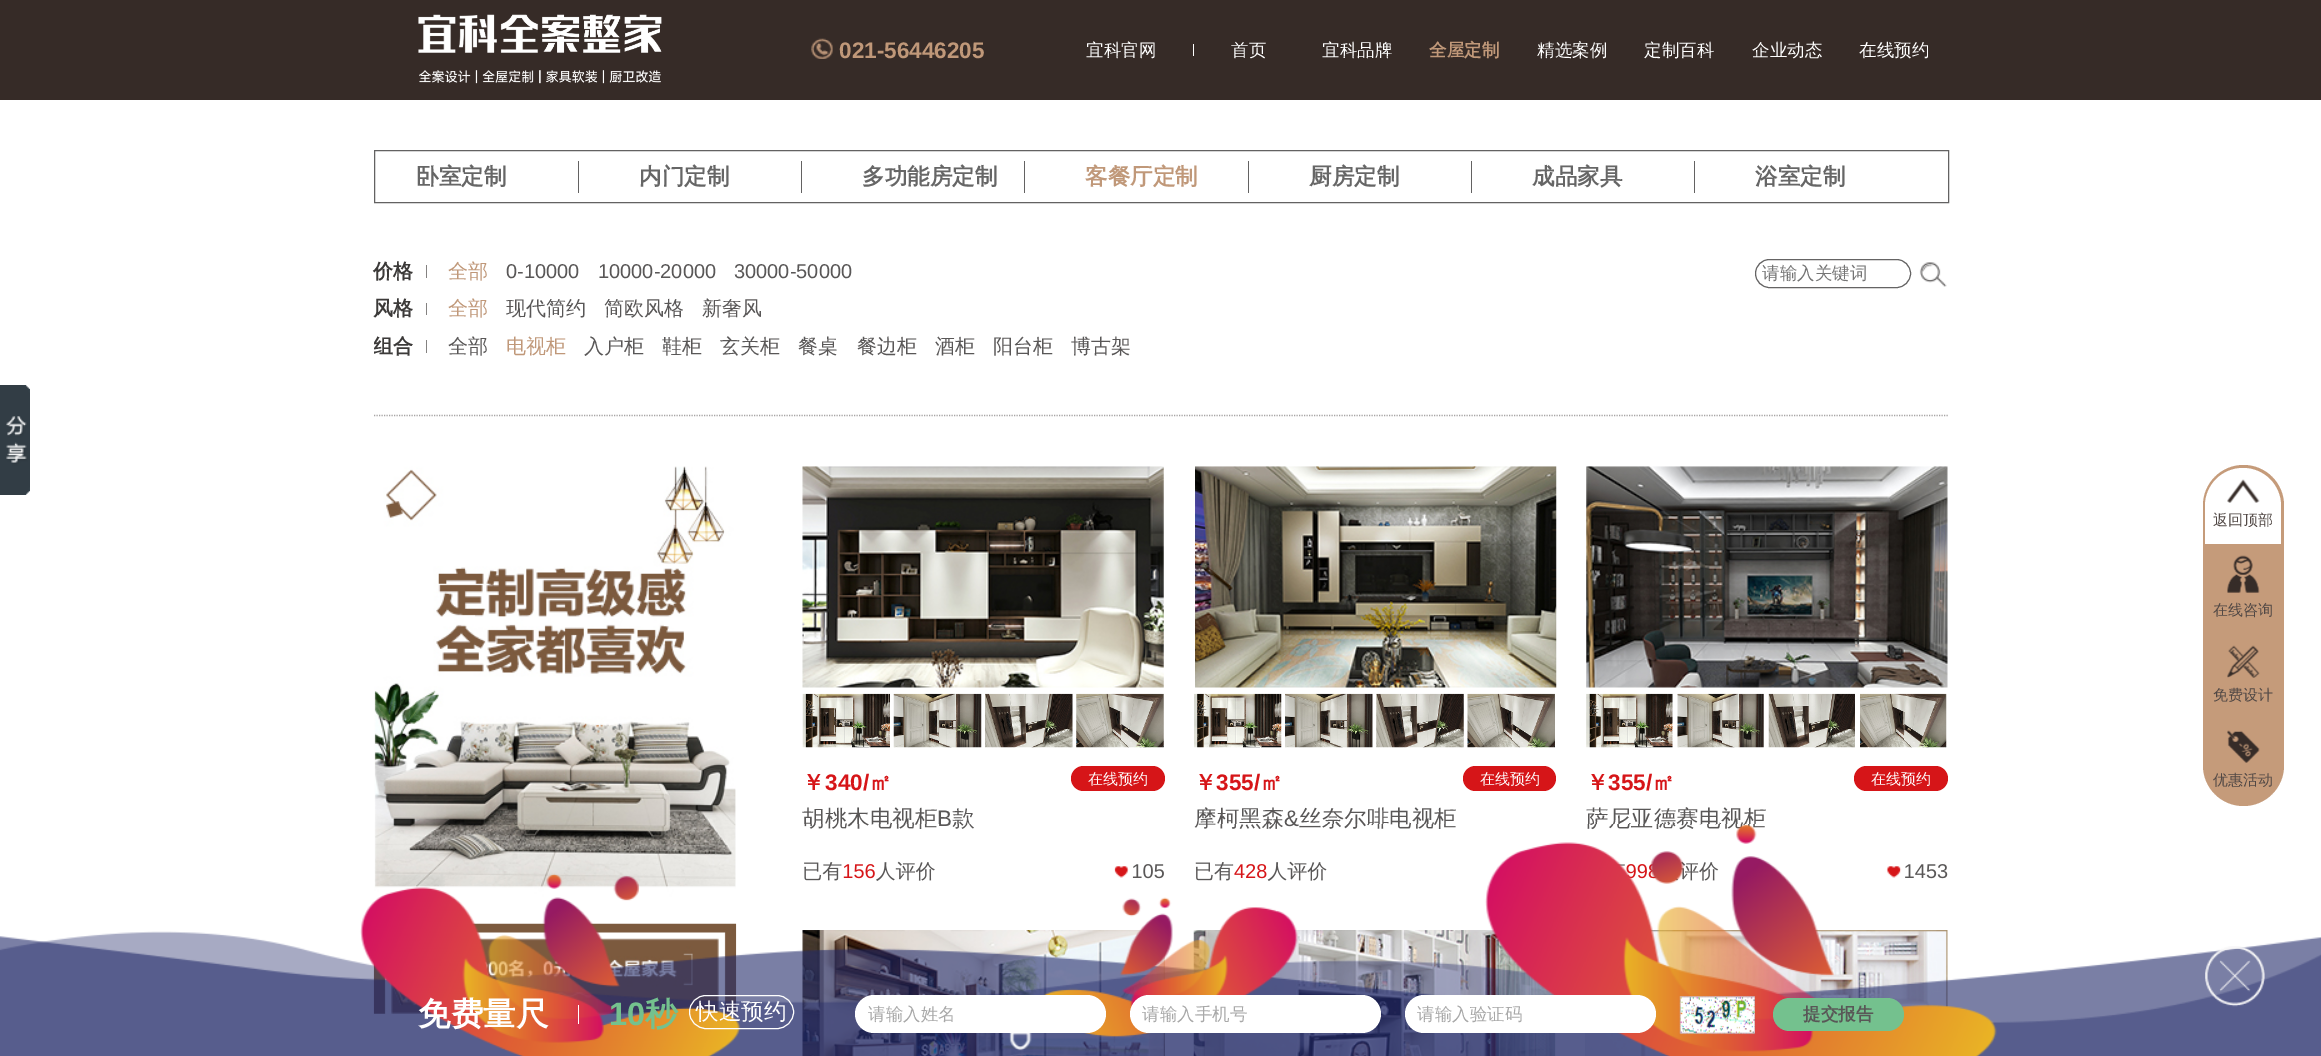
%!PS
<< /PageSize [2321 1056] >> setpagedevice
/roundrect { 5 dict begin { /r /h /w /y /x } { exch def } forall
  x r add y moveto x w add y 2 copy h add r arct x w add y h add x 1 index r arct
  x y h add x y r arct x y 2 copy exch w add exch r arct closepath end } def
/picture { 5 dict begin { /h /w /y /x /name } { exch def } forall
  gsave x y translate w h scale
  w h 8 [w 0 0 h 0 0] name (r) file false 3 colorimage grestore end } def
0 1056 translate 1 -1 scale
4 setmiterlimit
1 setgray
0 0 2321 1056 rectfill
(img1.rgb) 0 385 30 110 picture
0.212 0.169 0.153 setrgbcolor
0 0 2321 100 rectfill
(img2.rgb) 418 14 244 70 picture
(img3.rgb) 811 38 22 21 picture
/LiberationSans-Bold [22.5 0 0 -22.5 0 0] selectfont
0.753 0.596 0.475 setrgbcolor
839 58 moveto (021-56446205) show
/WenQuanYiZenHei-Medium [17.5 0 0 -17.5 0 0] selectfont
1 setgray
1086 56 moveto (宜科官网) show
1193 44 1 12 rectfill
1231 56 moveto (首页) show
1322 56 moveto (宜科品牌) show
/WenQuanYiZenHei-Bold [17.5 0 0 -17.5 0 0] selectfont
0.753 0.596 0.475 setrgbcolor
1429 56 moveto (全屋定制) show
/WenQuanYiZenHei-Medium [17.5 0 0 -17.5 0 0] selectfont
1 setgray
1537 56 moveto (精选案例) show
1644 56 moveto (定制百科) show
1752 56 moveto (企业动态) show
1859 56 moveto (在线预约) show
0.388 0.384 0.384 setrgbcolor
374.5 150.5 1574 52 rectstroke
/WenQuanYiZenHei-Bold [22.5 0 0 -22.5 0 0] selectfont
0.4 setgray
416 184 moveto (卧室定制) show
0.388 0.384 0.384 setrgbcolor
578 161 1 32 rectfill
0.4 setgray
639 184 moveto (内门定制) show
0.388 0.384 0.384 setrgbcolor
801 161 1 32 rectfill
0.4 setgray
862 184 moveto (多功能房定制) show
0.388 0.384 0.384 setrgbcolor
1024 161 1 32 rectfill
0.753 0.596 0.475 setrgbcolor
1085 184 moveto (客餐厅定制) show
0.388 0.384 0.384 setrgbcolor
1248 161 1 32 rectfill
0.4 setgray
1309 184 moveto (厨房定制) show
0.388 0.384 0.384 setrgbcolor
1471 161 1 32 rectfill
0.4 setgray
1532 184 moveto (成品家具) show
0.388 0.384 0.384 setrgbcolor
1694 161 1 32 rectfill
0.4 setgray
1755 184 moveto (浴室定制) show
/WenQuanYiZenHei-Bold [20 0 0 -20 0 0] selectfont
0.235 0.227 0.224 setrgbcolor
373 278 moveto (价格) show
0.518 0.51 0.506 setrgbcolor
426 265 1 13 rectfill
/WenQuanYiZenHei-Medium [20 0 0 -20 0 0] selectfont
0.753 0.596 0.475 setrgbcolor
448 278 moveto (全部) show
/LiberationSans-Regular [20 0 0 -20 0 0] selectfont
0.349 0.341 0.341 setrgbcolor
506 278 moveto (0-10000) show
598 278 moveto (10000-20000) show
734 278 moveto (30000-50000) show
/WenQuanYiZenHei-Bold [20 0 0 -20 0 0] selectfont
0.235 0.227 0.224 setrgbcolor
373 315 moveto (风格) show
0.518 0.51 0.506 setrgbcolor
426 303 1 12 rectfill
/WenQuanYiZenHei-Medium [20 0 0 -20 0 0] selectfont
0.753 0.596 0.475 setrgbcolor
448 315 moveto (全部) show
0.349 0.341 0.341 setrgbcolor
506 315 moveto (现代简约) show
604 315 moveto (简欧风格) show
702 315 moveto (新奢风) show
gsave
374 253 1575 112 rectclip
/WenQuanYiZenHei-Bold [20 0 0 -20 0 0] selectfont
0.235 0.227 0.224 setrgbcolor
373 353 moveto (组合) show
grestore
0.518 0.51 0.506 setrgbcolor
426 340 1 13 rectfill
0.349 0.341 0.341 setrgbcolor
448 353 moveto (全部) show
0.753 0.596 0.475 setrgbcolor
506 353 moveto (电视柜) show
0.349 0.341 0.341 setrgbcolor
584 353 moveto (入户柜) show
662 353 moveto (鞋柜) show
720 353 moveto (玄关柜) show
798 353 moveto (餐桌) show
857 353 moveto (餐边柜) show
935 353 moveto (酒柜) show
993 353 moveto (阳台柜) show
1071 353 moveto (博古架) show
0.396 0.392 0.392 setrgbcolor
1755.5 259.5 155 28 14 roundrect stroke
/WenQuanYiZenHei-Medium [17.5 0 0 -17.5 0 0] selectfont
0.459 setgray
1762 279 moveto (请输入关键词) show
(img4.rgb) 1919 262 28 25 picture
0.651 0.643 0.643 setrgbcolor
1.2 setlinewidth
[1.25 1.25] 0 setdash
newpath 374 415.5 moveto 1949 415.5 lineto stroke
(img5.rgb) 373 466 364 548 picture
(img6.rgb) 802 466 362 222 picture
(img7.rgb) 802 693 88 55 picture
(img8.rgb) 893 693 89 55 picture
(img9.rgb) 985 693 88 55 picture
(img10.rgb) 1076 693 88 55 picture
/WenQuanYiZenHei-Bold [22.5 0 0 -22.5 0 0] selectfont
0.839 0.082 0.094 setrgbcolor
802 790 moveto (￥) show
/LiberationSans-Bold [22.5 0 0 -22.5 0 0] selectfont
825 790 moveto (340/) show
/WenQuanYiZenHei-Bold [22.5 0 0 -22.5 0 0] selectfont
869 790 moveto (㎡) show
1071 766 94 25 12.5 roundrect fill
/WenQuanYiZenHei-Medium [15 0 0 -15 0 0] selectfont
1 setgray
1088 784 moveto (在线预约) show
/WenQuanYiZenHei-Medium [22.5 0 0 -22.5 0 0] selectfont
0.349 0.341 0.341 setrgbcolor
802 826 moveto (胡桃木电视柜) show
/LiberationSans-Regular [22.5 0 0 -22.5 0 0] selectfont
937 826 moveto (B) show
/WenQuanYiZenHei-Medium [22.5 0 0 -22.5 0 0] selectfont
952 826 moveto (款) show
/WenQuanYiZenHei-Medium [20 0 0 -20 0 0] selectfont
802 878 moveto (已有) show
/LiberationSans-Regular [20 0 0 -20 0 0] selectfont
0.839 0.082 0.094 setrgbcolor
842 878 moveto (156) show
/WenQuanYiZenHei-Medium [20 0 0 -20 0 0] selectfont
0.349 0.341 0.341 setrgbcolor
876 878 moveto (人评价) show
(img11.rgb) 1114 866 15 12 picture
/LiberationSans-Regular [20 0 0 -20 0 0] selectfont
1131 878 moveto (105) show
(img12.rgb) 1195 466 362 222 picture
(img13.rgb) 1194 693 88 55 picture
(img14.rgb) 1285 693 88 55 picture
(img15.rgb) 1376 693 88 55 picture
(img16.rgb) 1467 693 88 55 picture
/WenQuanYiZenHei-Bold [22.5 0 0 -22.5 0 0] selectfont
0.839 0.082 0.094 setrgbcolor
1194 790 moveto (￥) show
/LiberationSans-Bold [22.5 0 0 -22.5 0 0] selectfont
1216 790 moveto (355/) show
/WenQuanYiZenHei-Bold [22.5 0 0 -22.5 0 0] selectfont
1260 790 moveto (㎡) show
1463 766 93 25 12.5 roundrect fill
/WenQuanYiZenHei-Medium [15 0 0 -15 0 0] selectfont
1 setgray
1480 784 moveto (在线预约) show
/WenQuanYiZenHei-Medium [22.5 0 0 -22.5 0 0] selectfont
0.349 0.341 0.341 setrgbcolor
1194 826 moveto (摩柯黑森) show
/LiberationSans-Regular [22.5 0 0 -22.5 0 0] selectfont
1284 826 moveto (&) show
/WenQuanYiZenHei-Medium [22.5 0 0 -22.5 0 0] selectfont
1299 826 moveto (丝奈尔啡电视柜) show
/WenQuanYiZenHei-Medium [20 0 0 -20 0 0] selectfont
1194 878 moveto (已有) show
/LiberationSans-Regular [20 0 0 -20 0 0] selectfont
0.839 0.082 0.094 setrgbcolor
1234 878 moveto (428) show
/WenQuanYiZenHei-Medium [20 0 0 -20 0 0] selectfont
0.349 0.341 0.341 setrgbcolor
1267 878 moveto (人评价) show
(img17.rgb) 1586 466 362 222 picture
(img18.rgb) 1586 693 87 55 picture
(img19.rgb) 1677 693 87 55 picture
(img20.rgb) 1768 693 87 55 picture
(img21.rgb) 1860 693 87 55 picture
/WenQuanYiZenHei-Bold [22.5 0 0 -22.5 0 0] selectfont
0.839 0.082 0.094 setrgbcolor
1586 790 moveto (￥) show
/LiberationSans-Bold [22.5 0 0 -22.5 0 0] selectfont
1608 790 moveto (355/) show
/WenQuanYiZenHei-Bold [22.5 0 0 -22.5 0 0] selectfont
1652 790 moveto (㎡) show
1854 766 94 25 12.5 roundrect fill
/WenQuanYiZenHei-Medium [15 0 0 -15 0 0] selectfont
1 setgray
1871 784 moveto (在线预约) show
/WenQuanYiZenHei-Medium [22.5 0 0 -22.5 0 0] selectfont
0.349 0.341 0.341 setrgbcolor
1586 826 moveto (萨尼亚德赛电视柜) show
/LiberationSans-Regular [20 0 0 -20 0 0] selectfont
0.839 0.082 0.094 setrgbcolor
1626 878 moveto (99) show
/WenQuanYiZenHei-Medium [20 0 0 -20 0 0] selectfont
0.349 0.341 0.341 setrgbcolor
1679 878 moveto (评价) show
(img22.rgb) 1886 866 15 12 picture
/LiberationSans-Regular [20 0 0 -20 0 0] selectfont
1904 878 moveto (1453) show
(img23.rgb) 802 930 363 126 picture
(img24.rgb) 1193 930 363 126 picture
(img25.rgb) 1585 930 363 126 picture
0.773 0.608 0.478 setrgbcolor
2203 465 81 341 40.5 roundrect fill
1 setgray
newpath 2243 468 moveto 2264 468 2281 485 2281 506 curveto 2281 544 lineto 2205 544 lineto 2205 506 lineto 2205 485 2222 468 2243 468 curveto closepath fill
(img26.rgb) 2227 479 33 24 picture
/WenQuanYiZenHei-Medium [15 0 0 -15 0 0] selectfont
0.318 0.282 0.271 setrgbcolor
2213 525 moveto (返回顶部) show
(img27.rgb) 2227 555 33 38 picture
2213 615 moveto (在线咨询) show
(img28.rgb) 2227 645 33 33 picture
2213 700 moveto (免费设计) show
(img29.rgb) 2227 730 33 33 picture
2213 785 moveto (优惠活动) show
(img30.rgb) 0 824 2321 232 picture
(img31.rgb) 2205 946 60 61 picture
/WenQuanYiZenHei-Bold [32.5 0 0 -32.5 0 0] selectfont
1 setgray
418 1025 moveto (免费量尺) show
578 1005 1 19 rectfill
/LiberationSans-Bold [32.5 0 0 -32.5 0 0] selectfont
0.455 0.757 0.557 setrgbcolor
609 1025 moveto (10) show
/WenQuanYiZenHei-Bold [32.5 0 0 -32.5 0 0] selectfont
645 1025 moveto (秒) show
1 setgray
1 setlinewidth
[] 0 setdash
689.5 995.5 104 33 16.5 roundrect stroke
/WenQuanYiZenHei-Medium [22.5 0 0 -22.5 0 0] selectfont
696 1019 moveto (快速预约) show
855 995 251 38 19 roundrect fill
/WenQuanYiZenHei-Medium [17.5 0 0 -17.5 0 0] selectfont
0.663 setgray
868 1020 moveto (请输入姓名) show
1 setgray
1130 995 251 38 19 roundrect fill
0.663 setgray
1142 1020 moveto (请输入手机号) show
1 setgray
1405 995 251 38 19 roundrect fill
0.663 setgray
1417 1020 moveto (请输入验证码) show
(img32.rgb) 1679 996 76 39 picture
0.455 0.757 0.557 setrgbcolor
1773 998 131 33 16.5 roundrect fill
/WenQuanYiZenHei-Bold [17.5 0 0 -17.5 0 0] selectfont
0.349 0.341 0.341 setrgbcolor
1803 1020 moveto (提交报告) show
showpage
